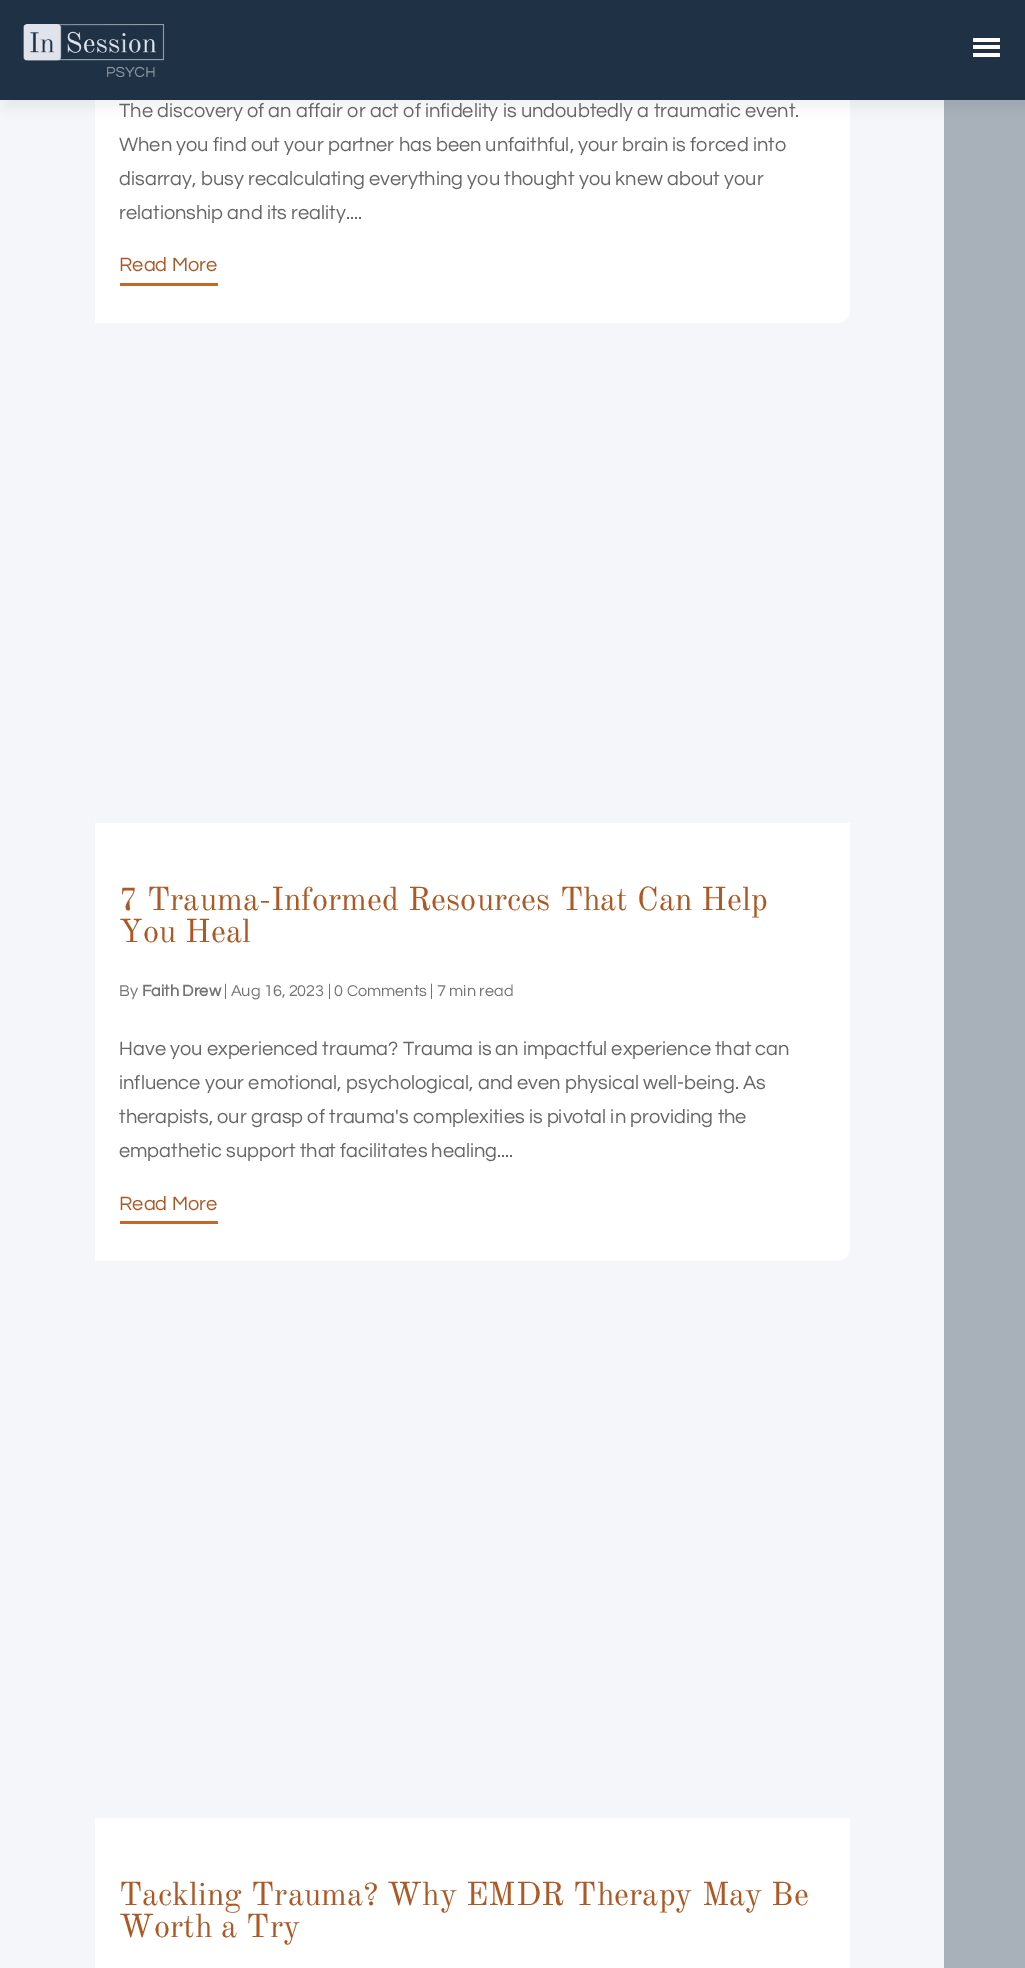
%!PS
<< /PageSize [1025 1968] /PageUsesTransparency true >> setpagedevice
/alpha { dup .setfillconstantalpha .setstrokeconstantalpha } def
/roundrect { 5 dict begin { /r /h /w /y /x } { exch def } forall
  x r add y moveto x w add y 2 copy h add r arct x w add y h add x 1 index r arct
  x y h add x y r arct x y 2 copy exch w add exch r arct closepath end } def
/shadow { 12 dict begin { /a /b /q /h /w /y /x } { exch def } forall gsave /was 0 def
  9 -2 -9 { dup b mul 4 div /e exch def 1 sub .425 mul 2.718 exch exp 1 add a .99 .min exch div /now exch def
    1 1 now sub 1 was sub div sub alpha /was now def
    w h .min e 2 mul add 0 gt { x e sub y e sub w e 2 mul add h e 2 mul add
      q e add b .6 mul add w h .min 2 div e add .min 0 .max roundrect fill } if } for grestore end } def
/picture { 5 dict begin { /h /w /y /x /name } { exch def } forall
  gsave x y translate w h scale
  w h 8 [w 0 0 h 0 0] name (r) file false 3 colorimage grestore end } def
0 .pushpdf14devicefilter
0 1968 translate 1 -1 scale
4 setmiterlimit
0.961 0.965 0.976 setrgbcolor
0 0 1025 1968 rectfill
0.659 0.694 0.729 setrgbcolor
944 100 81 1868 rectfill
1 setgray
newpath 95 -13 moveto 850 -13 lineto 850 310 lineto 850 317 844 323 837 323 curveto 95 323 lineto closepath fill
0 setgray
5 5 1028 103 0 6 0.06 shadow
0.122 0.192 0.267 setrgbcolor
0 0 1025 100 rectfill
(img1.rgb) 23 24 142 53 picture
1 setgray
973 38 27 4 1 roundrect fill
973 45 27 4 1 roundrect fill
973 53 27 4 1 roundrect fill
/Questrial-Regular [20 0 0 -20 0 0] selectfont
0.4 setgray
119 117 moveto (The discovery of an affair or act of infidelity is undoubtedly a traumatic event.) show
119 151 moveto (When you find out your partner has been unfaithful, your brain is forced into) show
119 185 moveto (disarray, busy recalculating everything you thought you knew about your) show
119 219 moveto (relationship and its reality....) show
0.78 0.4 0.169 setrgbcolor
120 283 98 3 rectfill
0.675 0.349 0.145 setrgbcolor
119 271 moveto (Read More) show
1 setgray
newpath 95 823 moveto 850 823 lineto 850 1248 lineto 850 1255 844 1261 837 1261 curveto 95 1261 lineto closepath fill
/OldStandardTT-Regular [32.5 0 0 -32.5 0 0] selectfont
0.675 0.349 0.145 setrgbcolor
119 910 moveto (7 Trauma-Informed Resources That Can Help) show
119 942 moveto (You Heal) show
/Questrial-Regular [16.25 0 0 -16.25 0 0] selectfont
0.451 setgray
119 996 moveto (By) show
/Questrial-Bold [16.25 0 0 -16.25 0 0] selectfont
142 996 moveto (Faith Drew) show
/Questrial-Regular [16.25 0 0 -16.25 0 0] selectfont
224 996 moveto (| Aug 16, 2023 | 0 Comments | 7 min read) show
/Questrial-Regular [20 0 0 -20 0 0] selectfont
0.4 setgray
119 1055 moveto (Have you experienced trauma? Trauma is an impactful experience that can) show
119 1089 moveto (influence your emotional, psychological, and even physical well-being. As) show
119 1123 moveto (therapists, our grasp of trauma's complexities is pivotal in providing the) show
119 1157 moveto (empathetic support that facilitates healing....) show
0.78 0.4 0.169 setrgbcolor
120 1221 98 3 rectfill
0.675 0.349 0.145 setrgbcolor
119 1210 moveto (Read More) show
1 setgray
95 1818 755 150 rectfill
/OldStandardTT-Regular [32.5 0 0 -32.5 0 0] selectfont
0.675 0.349 0.145 setrgbcolor
119 1905 moveto (Tackling Trauma? Why EMDR Therapy May Be) show
119 1937 moveto (Worth a Try) show
.poppdf14devicefilter showpage
